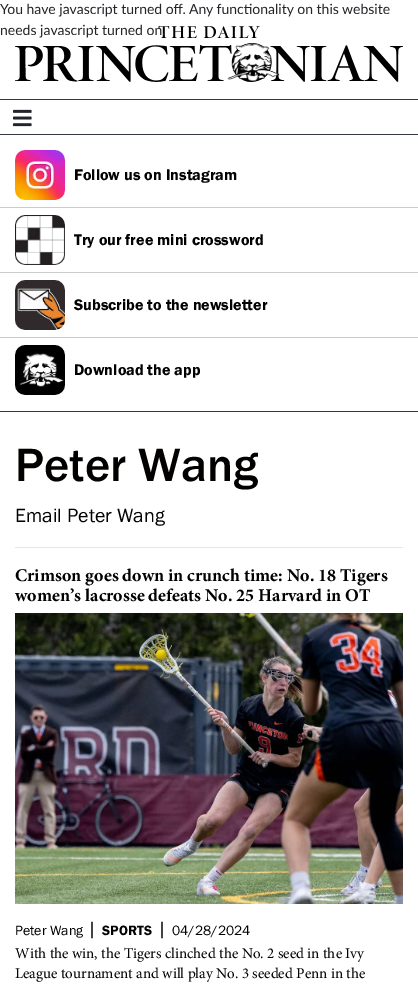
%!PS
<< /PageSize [418 984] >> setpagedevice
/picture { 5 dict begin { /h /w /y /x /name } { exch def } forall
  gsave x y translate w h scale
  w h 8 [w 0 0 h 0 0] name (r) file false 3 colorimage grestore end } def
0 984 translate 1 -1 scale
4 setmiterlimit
1 setgray
0 0 418 984 rectfill
(img2.rgb) 15 26 388 56 picture
(img1.rgb) 0 3 390 35 picture
0.204 0.227 0.251 setrgbcolor
0 99 418 1 rectfill
0 134 418 1 rectfill
(img3.rgb) 13 109 19 18 picture
0 411 418 1 rectfill
0.8 setgray
0 207 418 1 rectfill
(img4.rgb) 15 150 50 50 picture
/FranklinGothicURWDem-Regular [16 0 0 -16 0 0] selectfont
0.008 0.004 0 setrgbcolor
74 180 moveto (Follow us on Instagram) show
0.8 setgray
0 272 418 1 rectfill
(img5.rgb) 15 215 50 50 picture
0.008 0.004 0 setrgbcolor
74 245 moveto (Try our free mini crossword) show
0.8 setgray
0 337 418 1 rectfill
(img6.rgb) 15 280 50 50 picture
0.008 0.004 0 setrgbcolor
74 310 moveto (Subscribe to the newsletter) show
(img7.rgb) 15 345 50 50 picture
74 375 moveto (Download the app) show
/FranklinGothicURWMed-Regular [48.25 0 0 -48.25 0 0] selectfont
15 481 moveto (Peter Wang) show
/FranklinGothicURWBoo-Regular [20 0 0 -20 0 0] selectfont
15 522 moveto (Email Peter Wang) show
0.902 setgray
15 547 388 1 rectfill
/Minion-Bold [18 0 0 -18 0 0] selectfont
0.008 0.004 0 setrgbcolor
15 581 moveto (Crimson goes down in crunch time: No. 18 Tigers) show
15 601 moveto (women’s lacrosse defeats No. 25 Harvard in OT) show
(img8.rgb) 15 613 388 291 picture
/FranklinGothicURWBoo-Regular [14 0 0 -14 0 0] selectfont
15 935 moveto (Peter Wang) show
/FranklinGothicURWBoo-Regular [20 0 0 -20 0 0] selectfont
87 935 moveto (|) show
/FranklinGothicURWDem-Regular [14 0 0 -14 0 0] selectfont
102 935 moveto (SPORTS) show
/FranklinGothicURWBoo-Regular [20 0 0 -20 0 0] selectfont
157 935 moveto (|) show
/FranklinGothicURWBoo-Regular [14 0 0 -14 0 0] selectfont
172 935 moveto (04/28/2024) show
/Minion-Regular [15 0 0 -15 0 0] selectfont
15 958 moveto (With the win, the Tigers clinched the No. 2 seed in the Ivy) show
15 978 moveto (League tournament and will play No. 3 seeded Penn in the) show
showpage
